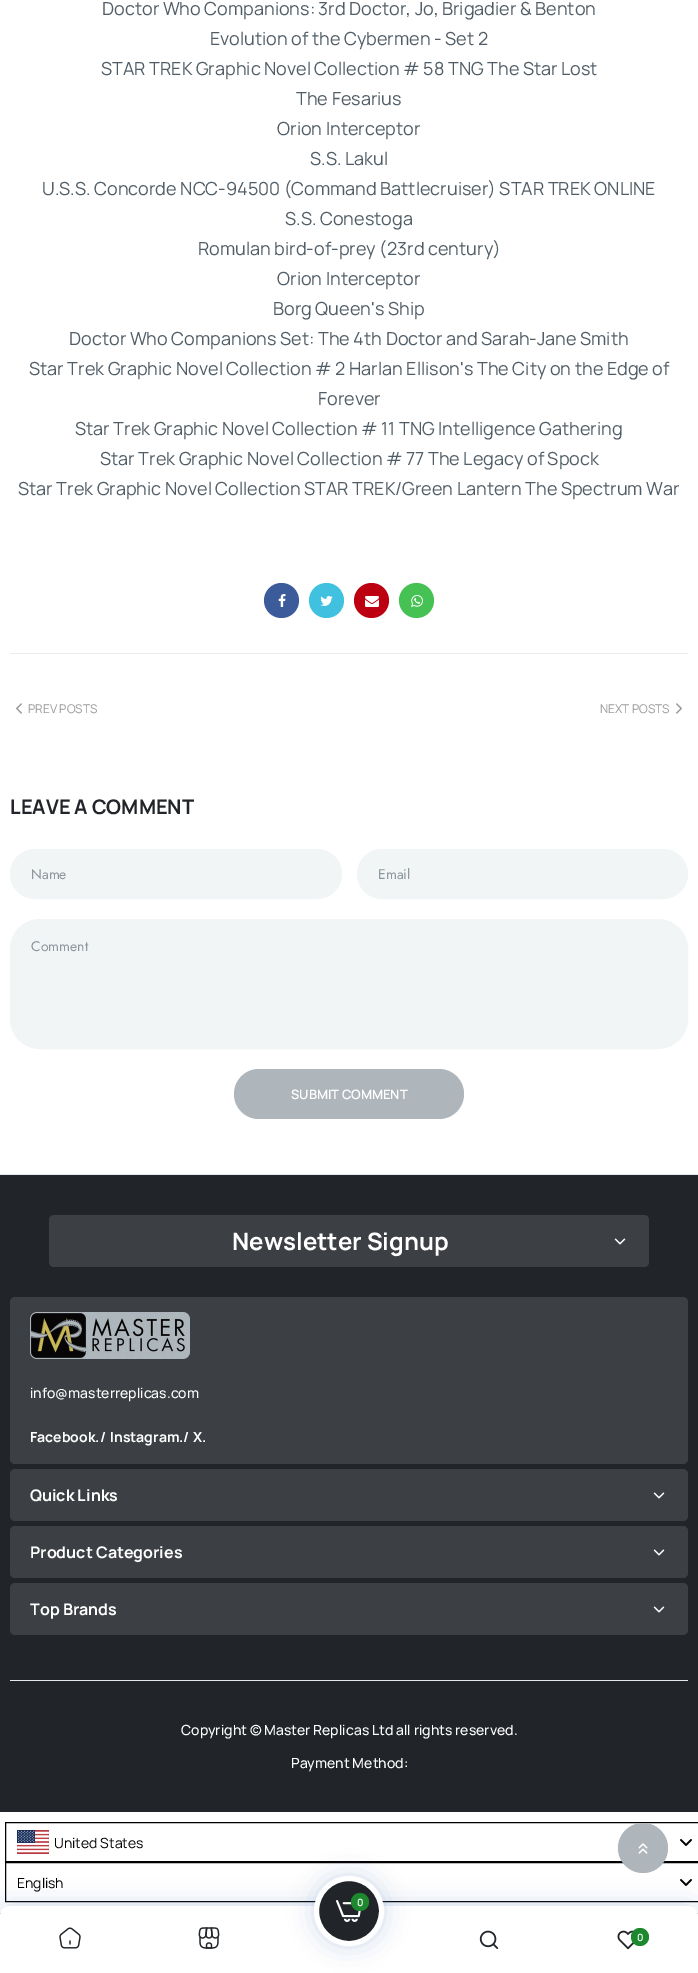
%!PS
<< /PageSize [698 1973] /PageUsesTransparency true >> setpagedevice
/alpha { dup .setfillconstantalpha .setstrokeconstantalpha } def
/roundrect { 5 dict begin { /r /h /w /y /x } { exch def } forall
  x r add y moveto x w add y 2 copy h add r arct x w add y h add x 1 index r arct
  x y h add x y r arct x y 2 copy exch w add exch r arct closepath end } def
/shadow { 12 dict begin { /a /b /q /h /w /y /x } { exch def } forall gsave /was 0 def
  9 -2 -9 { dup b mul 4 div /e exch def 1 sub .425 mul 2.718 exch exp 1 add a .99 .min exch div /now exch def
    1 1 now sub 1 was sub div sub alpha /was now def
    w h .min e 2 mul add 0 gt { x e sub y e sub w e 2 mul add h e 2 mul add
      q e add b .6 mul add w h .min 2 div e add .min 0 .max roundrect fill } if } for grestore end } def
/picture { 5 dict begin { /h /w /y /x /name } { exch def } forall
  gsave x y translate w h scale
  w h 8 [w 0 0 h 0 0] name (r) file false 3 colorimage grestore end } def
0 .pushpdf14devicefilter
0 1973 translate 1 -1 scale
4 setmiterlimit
1 setgray
0 0 698 1973 rectfill
/Manrope-Regular [18 0 0 -18 0 0] selectfont
0.318 0.365 0.4 setrgbcolor
102 15 moveto (Doctor Who Companions: 3rd Doctor, Jo, Brigadier & Benton) show
210 45 moveto (Evolution of the Cybermen - Set 2) show
101 75 moveto (STAR TREK Graphic Novel Collection # 58 TNG The Star Lost) show
296 105 moveto (The Fesarius) show
277 135 moveto (Orion Interceptor) show
310 165 moveto (S.S. Lakul) show
42 195 moveto (U.S.S. Concorde NCC-94500 \(Command Battlecruiser\) STAR TREK ONLINE) show
285 225 moveto (S.S. Conestoga) show
198 255 moveto (Romulan bird-of-prey \(23rd century\)) show
277 285 moveto (Orion Interceptor) show
273 315 moveto (Borg Queen's Ship) show
69 345 moveto (Doctor Who Companions Set: The 4th Doctor and Sarah-Jane Smith) show
29 375 moveto (Star Trek Graphic Novel Collection # 2 Harlan Ellison's The City on the Edge of) show
318 405 moveto (Forever) show
75 435 moveto (Star Trek Graphic Novel Collection # 11 TNG Intelligence Gathering) show
100 465 moveto (Star Trek Graphic Novel Collection # 77 The Legacy of Spock) show
18 495 moveto (Star Trek Graphic Novel Collection STAR TREK/Green Lantern The Spectrum War) show
0.922 setgray
10 653 678 1 rectfill
0.235 0.357 0.608 setrgbcolor
newpath 281.5 600.5 17.5 0 360 arc closepath fill
(img1.rgb) 278 594 8 13 picture
0.251 0.757 0.875 setrgbcolor
newpath 326.5 600.5 17.5 0 360 arc closepath fill
(img2.rgb) 320 596 13 10 picture
0.737 0 0.067 setrgbcolor
newpath 371.5 600.5 17.5 0 360 arc closepath fill
(img3.rgb) 365 596 14 11 picture
0.271 0.761 0.325 setrgbcolor
newpath 416.5 600.5 17.5 0 360 arc closepath fill
(img4.rgb) 411 595 12 12 picture
(img5.rgb) 16 703 6 11 picture
/Manrope-Regular [12 0 0 -12 0 0] selectfont
0.6 setgray
28 713 moveto (PREV POSTS) show
600 713 moveto (NEXT POSTS) show
(img6.rgb) 676 703 6 11 picture
/Manrope-Bold [20 0 0 -20 0 0] selectfont
0.129 0.145 0.161 setrgbcolor
10 814 moveto (LEAVE A COMMENT) show
0.945 0.961 0.965 setrgbcolor
10.5 849.5 331 49 24.5 roundrect gsave fill grestore
stroke
/Jost-Regular [14 0 0 -14 0 0] selectfont
0.553 0.592 0.62 setrgbcolor
31 879 moveto (Name) show
0.945 0.961 0.965 setrgbcolor
357.5 849.5 330 49 24.5 roundrect gsave fill grestore
stroke
0.553 0.592 0.62 setrgbcolor
378 879 moveto (Email) show
0.945 0.961 0.965 setrgbcolor
10.5 919.5 677 129 29.5 roundrect gsave fill grestore
stroke
0.553 0.592 0.62 setrgbcolor
31 951 moveto (Comment) show
0.686 0.714 0.733 setrgbcolor
234 1069 230 50 25 roundrect fill
/Manrope-SemiBold [13 0 0 -13 0 0] selectfont
1 setgray
291 1099 moveto (SUBMIT COMMENT) show
0.129 0.145 0.161 setrgbcolor
0 1175 698 741 rectfill
0.898 0.91 0.925 setrgbcolor
0 1174 698 1 rectfill
0.235 0.247 0.263 setrgbcolor
49 1215 600 52 5 roundrect fill
/Manrope-Bold [24 0 0 -24 0 0] selectfont
1 setgray
232 1250 moveto (Newsletter Signup) show
(img7.rgb) 614 1238 12 7 picture
0.235 0.247 0.263 setrgbcolor
10 1297 678 167 5 roundrect fill
(img8.rgb) 30 1312 160 47 picture
/Manrope-Medium [14 0 0 -14 0 0] selectfont
1 setgray
30 1398 moveto (info@masterreplicas.com) show
/Manrope-Bold [14 0 0 -14 0 0] selectfont
30 1442 moveto (Facebook./) show
110 1442 moveto (Instagram./) show
193 1442 moveto (X.) show
0.235 0.247 0.263 setrgbcolor
10 1469 678 52 5 roundrect fill
/Manrope-Bold [16 0 0 -16 0 0] selectfont
1 setgray
30 1501 moveto (Quick Links) show
(img7.rgb) 653 1492 12 7 picture
0.235 0.247 0.263 setrgbcolor
10 1526 678 52 5 roundrect fill
1 setgray
30 1558 moveto (Product Categories) show
(img7.rgb) 653 1549 12 7 picture
0.235 0.247 0.263 setrgbcolor
10 1583 678 52 5 roundrect fill
1 setgray
30 1615 moveto (Top Brands) show
(img7.rgb) 653 1606 12 7 picture
0.898 0.91 0.925 setrgbcolor
10 1680 678 1 rectfill
/Manrope-Medium [14 0 0 -14 0 0] selectfont
1 setgray
181 1735 moveto (Copyright © Master Replicas Ltd all rights reserved.) show
291 1768 moveto (Payment Method:) show
0 1812 698 101 rectfill
(img9.rgb) 680 1839 12 7 picture
0 setgray
5.5 1822.5 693 39 rectstroke
(img10.rgb) 17 1830 32 24 picture
0.05 alpha
17.5 1830.5 31 23 rectstroke
/Manrope-Regular [14 0 0 -14 0 0] selectfont
1 alpha
54 1848 moveto (United States) show
(img9.rgb) 680 1879 12 7 picture
5.5 1862.5 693 39 rectstroke
17 1888 moveto (English) show
0.282 0.482 0.718 setrgbcolor
0 1906 698 67 10 12.5 0.25 shadow
0.686 0.714 0.733 setrgbcolor
newpath 643 1848 25 0 360 arc closepath fill
(img11.rgb) 638 1843 10 11 picture
1 setgray
newpath 10 1906 moveto 688 1906 lineto 693.5 1906 698 1910.5 698 1916 curveto 698 1973 lineto 0 1973 lineto 0 1916 lineto 0 1910.5 4.5 1906 10 1906 curveto closepath fill
0.282 0.482 0.718 setrgbcolor
314 1876 70 70 35 12.5 0.25 shadow
0.129 0.145 0.161 setrgbcolor
newpath 349 1911 32.5 0 360 arc closepath gsave fill grestore
1 setgray
5 setlinewidth
stroke
(img12.rgb) 336 1900 25 22 picture
0.118 0.533 0.184 setrgbcolor
newpath 360 1902 9 0 360 arc closepath fill
/Manrope-SemiBold [10 0 0 -10 0 0] selectfont
1 setgray
357 1906 moveto (0) show
(img13.rgb) 59 1927 22 22 picture
(img14.rgb) 198 1927 22 22 picture
(img15.rgb) 479 1930 20 19 picture
(img16.rgb) 617 1930 18 20 picture
0.118 0.533 0.184 setrgbcolor
newpath 640 1937 9 0 360 arc closepath fill
1 setgray
637 1941 moveto (0) show
.poppdf14devicefilter showpage
